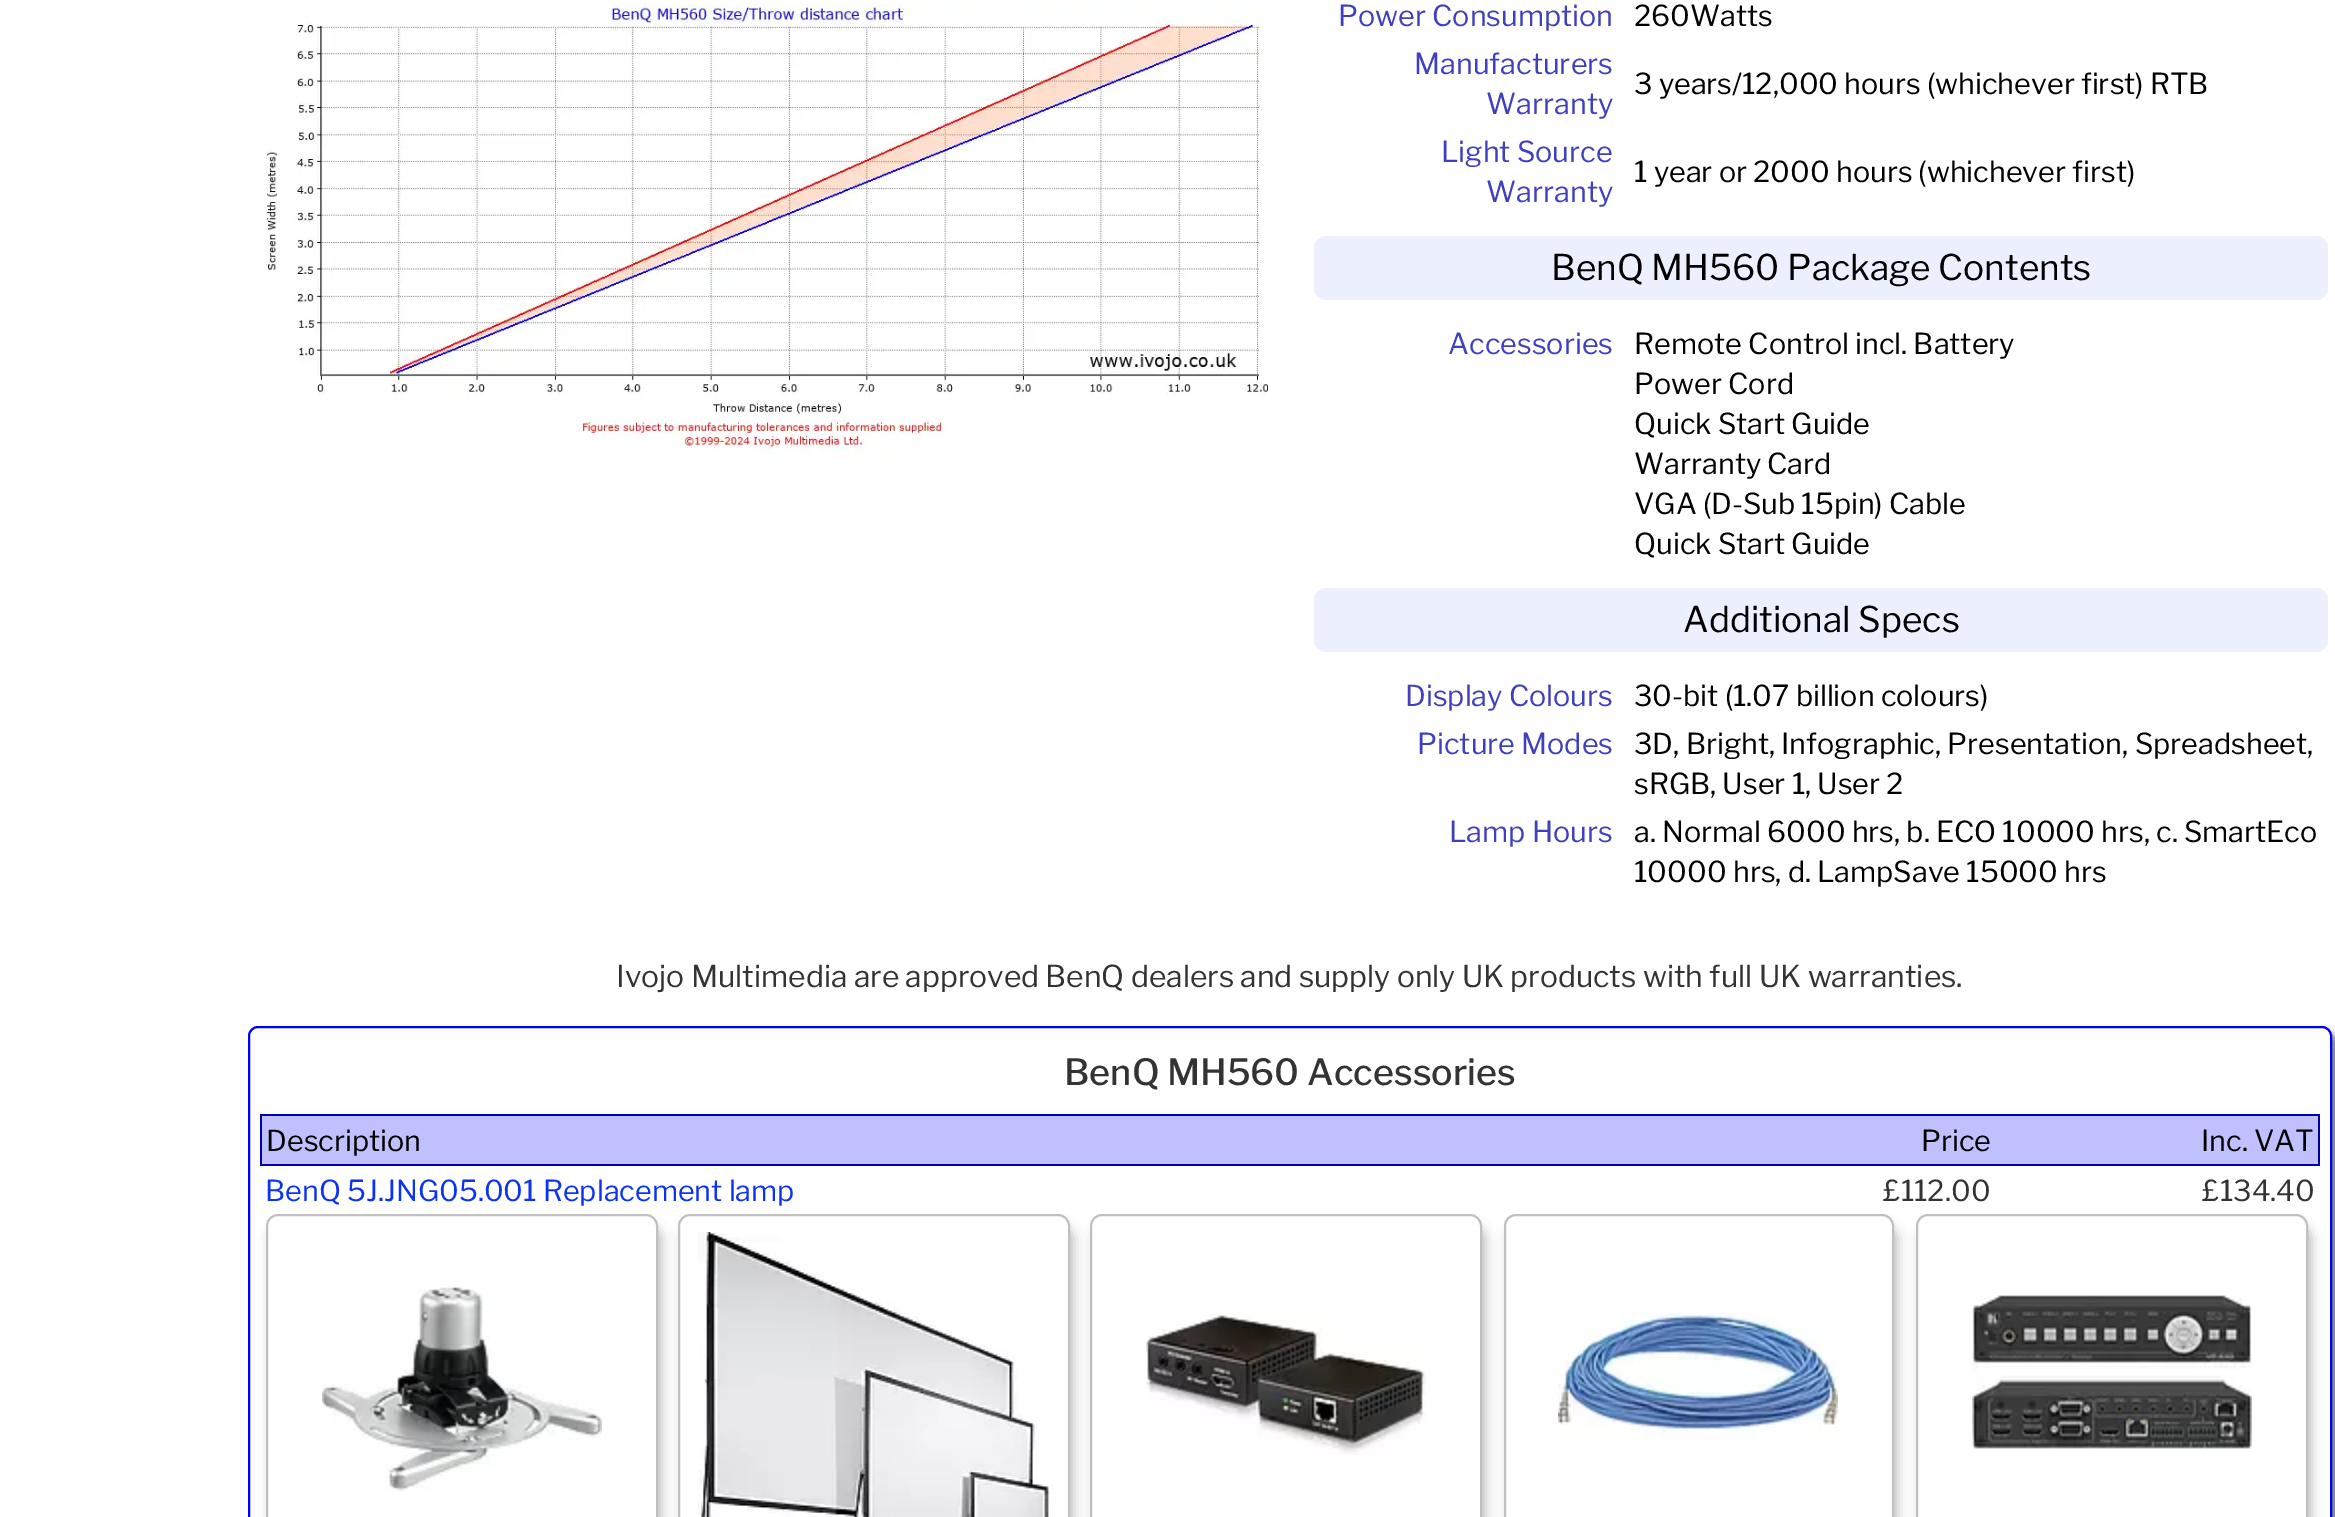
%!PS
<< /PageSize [2335 1517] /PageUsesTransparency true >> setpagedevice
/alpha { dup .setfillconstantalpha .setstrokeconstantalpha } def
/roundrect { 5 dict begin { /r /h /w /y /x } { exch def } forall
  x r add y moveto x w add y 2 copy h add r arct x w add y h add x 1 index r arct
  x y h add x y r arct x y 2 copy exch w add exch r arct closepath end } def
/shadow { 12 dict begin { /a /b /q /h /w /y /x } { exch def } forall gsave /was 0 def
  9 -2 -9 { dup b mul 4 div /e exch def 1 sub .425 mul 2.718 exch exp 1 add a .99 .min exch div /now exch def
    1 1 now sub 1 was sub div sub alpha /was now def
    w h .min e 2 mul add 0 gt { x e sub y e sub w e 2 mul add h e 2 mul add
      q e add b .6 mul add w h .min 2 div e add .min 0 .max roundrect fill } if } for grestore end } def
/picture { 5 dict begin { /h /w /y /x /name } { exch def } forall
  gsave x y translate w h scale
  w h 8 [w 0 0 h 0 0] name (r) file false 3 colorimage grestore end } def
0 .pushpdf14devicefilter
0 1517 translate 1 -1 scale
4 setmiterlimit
1 setgray
0 0 2335 1517 rectfill
(img1.rgb) 266 4 1002 452 picture
/LibreFranklin-Regular [28.8 0 0 -28.8 0 0] selectfont
0.251 0.251 0.749 setrgbcolor
1338 26 moveto (Power Consumption) show
0 setgray
1634 26 moveto (260Watts) show
0.251 0.251 0.749 setrgbcolor
1414 74 moveto (Manufacturers) show
1486 114 moveto (Warranty) show
0 setgray
1634 94 moveto (3 years/12,000 hours \(whichever first\) RTB) show
0.251 0.251 0.749 setrgbcolor
1441 162 moveto (Light Source) show
1486 202 moveto (Warranty) show
0 setgray
1634 182 moveto (1 year or 2000 hours \(whichever first\)) show
0.925 0.937 0.996 setrgbcolor
1314 236 1014 64 12 roundrect fill
/LibreFranklin-Regular [35.25 0 0 -35.25 0 0] selectfont
0 setgray
1551 280 moveto (BenQ MH560 Package Contents) show
/LibreFranklin-Regular [28.8 0 0 -28.8 0 0] selectfont
0.251 0.251 0.749 setrgbcolor
1448 354 moveto (Accessories) show
0 setgray
1634 354 moveto (Remote Control incl. Battery) show
1634 394 moveto (Power Cord) show
1634 434 moveto (Quick Start Guide) show
1634 474 moveto (Warranty Card) show
1634 514 moveto (VGA \(D-Sub 15pin\) Cable) show
1634 554 moveto (Quick Start Guide) show
0.925 0.937 0.996 setrgbcolor
1314 588 1014 64 12 roundrect fill
/LibreFranklin-Regular [35.25 0 0 -35.25 0 0] selectfont
0 setgray
1683 632 moveto (Additional Specs) show
/LibreFranklin-Regular [28.8 0 0 -28.8 0 0] selectfont
0.251 0.251 0.749 setrgbcolor
1405 706 moveto (Display Colours) show
0 setgray
1634 706 moveto (30-bit \(1.07 billion colours\)) show
0.251 0.251 0.749 setrgbcolor
1417 754 moveto (Picture Modes) show
0 setgray
1634 754 moveto (3D, Bright, Infographic, Presentation, Spreadsheet,) show
1634 794 moveto (sRGB, User 1, User 2) show
0.251 0.251 0.749 setrgbcolor
1449 842 moveto (Lamp Hours) show
0 setgray
1634 842 moveto (a. Normal 6000 hrs, b. ECO 10000 hrs, c. SmartEco) show
1634 882 moveto (10000 hrs, d. LampSave 15000 hrs) show
/LibreFranklin-Regular [30 0 0 -30 0 0] selectfont
0.2 setgray
616 987 moveto (Ivojo Multimedia are approved BenQ dealers and supply only UK products with full UK warranties.) show
0.502 setgray
256 1034 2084 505 10 4 1 shadow
1 setgray
249 1027 2082 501 9 roundrect gsave fill grestore
0 0 1 setrgbcolor
2 setlinewidth
stroke
/LibreFranklin-Medium [36 0 0 -36 0 0] selectfont
0.2 setgray
1064 1085 moveto (BenQ MH560 Accessories) show
0.753 0.753 1 setrgbcolor
262 1116 2056 48 rectfill
0 0 0.667 setrgbcolor
260 1114 2060 2 rectfill
2318 1114 2 52 rectfill
260 1164 2060 2 rectfill
260 1114 2 52 rectfill
/LibreFranklin-Regular [28.8 0 0 -28.8 0 0] selectfont
0 setgray
266 1151 moveto (Description) show
1921 1151 moveto (Price) show
2201 1151 moveto (Inc. VAT) show
0.051 0.2 0.949 setrgbcolor
265 1201 moveto (BenQ 5J.JNG05.001 Replacement lamp) show
0.2 setgray
1883 1201 moveto (£112.00) show
2202 1201 moveto (£134.40) show
gsave
newpath 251 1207 moveto 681 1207 lineto 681 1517 lineto 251 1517 lineto closepath 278 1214 moveto 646 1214 lineto 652.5 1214 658 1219.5 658 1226 curveto 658 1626 lineto 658 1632.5 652.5 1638 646 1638 curveto 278 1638 lineto 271.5 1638 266 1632.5 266 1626 curveto 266 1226 lineto 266 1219.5 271.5 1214 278 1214 curveto closepath eoclip newpath
0.753 setgray
270 1226 392 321 12 6 1 shadow
grestore
0.753 setgray
267 1215 390 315 11 roundrect stroke
(img2.rgb) 322 1287 280 205 picture
gsave
newpath 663 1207 moveto 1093 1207 lineto 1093 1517 lineto 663 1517 lineto closepath 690 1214 moveto 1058 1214 lineto 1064.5 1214 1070 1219.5 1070 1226 curveto 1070 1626 lineto 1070 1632.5 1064.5 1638 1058 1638 curveto 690 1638 lineto 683.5 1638 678 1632.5 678 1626 curveto 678 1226 lineto 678 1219.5 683.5 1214 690 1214 curveto closepath eoclip newpath
682 1226 392 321 12 6 1 shadow
grestore
679 1215 390 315 11 roundrect stroke
(img3.rgb) 698 1232 352 285 picture
gsave
newpath 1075 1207 moveto 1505 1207 lineto 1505 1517 lineto 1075 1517 lineto closepath 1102 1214 moveto 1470 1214 lineto 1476.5 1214 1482 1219.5 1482 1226 curveto 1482 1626 lineto 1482 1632.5 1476.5 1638 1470 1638 curveto 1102 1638 lineto 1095.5 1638 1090 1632.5 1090 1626 curveto 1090 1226 lineto 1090 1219.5 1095.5 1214 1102 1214 curveto closepath eoclip newpath
1094 1226 392 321 12 6 1 shadow
grestore
1091 1215 390 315 11 roundrect stroke
(img4.rgb) 1146 1314 280 141 picture
gsave
newpath 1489 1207 moveto 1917 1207 lineto 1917 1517 lineto 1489 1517 lineto closepath 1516 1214 moveto 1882 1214 lineto 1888.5 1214 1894 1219.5 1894 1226 curveto 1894 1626 lineto 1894 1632.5 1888.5 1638 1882 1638 curveto 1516 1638 lineto 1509.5 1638 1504 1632.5 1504 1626 curveto 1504 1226 lineto 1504 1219.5 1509.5 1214 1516 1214 curveto closepath eoclip newpath
1508 1226 390 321 12 6 1 shadow
grestore
1505 1215 388 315 11 roundrect stroke
(img5.rgb) 1558 1311 280 130 picture
gsave
newpath 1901 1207 moveto 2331 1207 lineto 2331 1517 lineto 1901 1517 lineto closepath 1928 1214 moveto 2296 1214 lineto 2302.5 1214 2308 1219.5 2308 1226 curveto 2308 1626 lineto 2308 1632.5 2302.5 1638 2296 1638 curveto 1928 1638 lineto 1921.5 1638 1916 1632.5 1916 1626 curveto 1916 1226 lineto 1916 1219.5 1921.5 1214 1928 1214 curveto closepath eoclip newpath
1920 1226 392 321 12 6 1 shadow
grestore
1917 1215 390 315 11 roundrect stroke
(img6.rgb) 1972 1295 280 154 picture
.poppdf14devicefilter showpage
